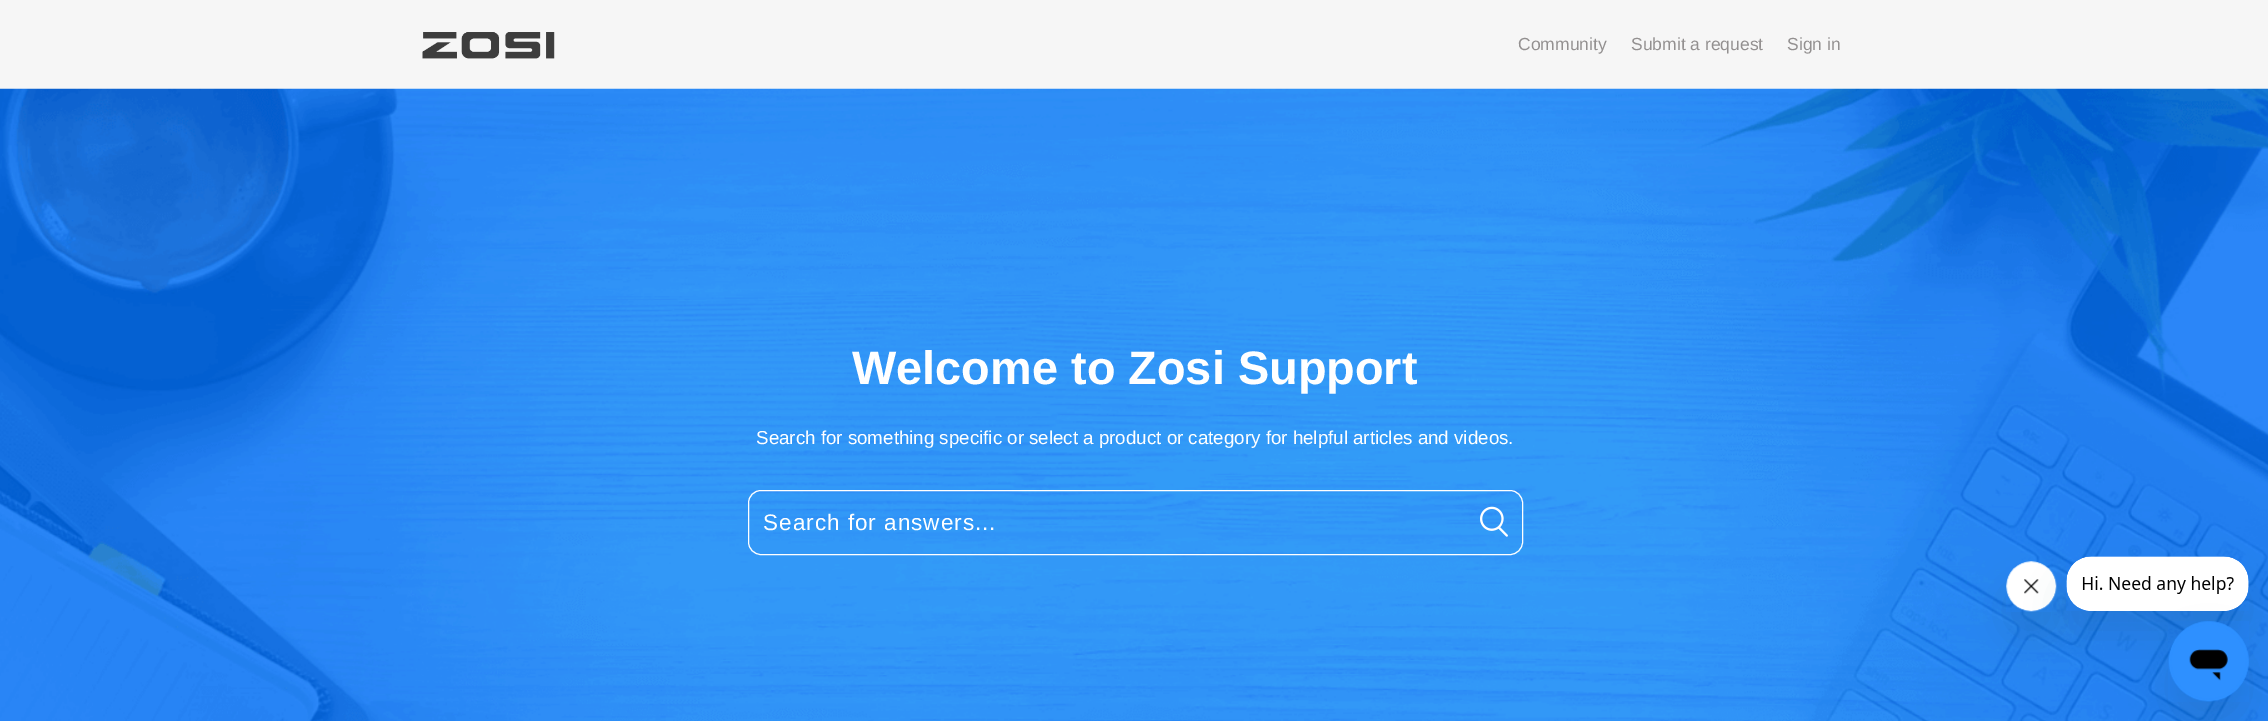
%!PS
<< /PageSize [2268 721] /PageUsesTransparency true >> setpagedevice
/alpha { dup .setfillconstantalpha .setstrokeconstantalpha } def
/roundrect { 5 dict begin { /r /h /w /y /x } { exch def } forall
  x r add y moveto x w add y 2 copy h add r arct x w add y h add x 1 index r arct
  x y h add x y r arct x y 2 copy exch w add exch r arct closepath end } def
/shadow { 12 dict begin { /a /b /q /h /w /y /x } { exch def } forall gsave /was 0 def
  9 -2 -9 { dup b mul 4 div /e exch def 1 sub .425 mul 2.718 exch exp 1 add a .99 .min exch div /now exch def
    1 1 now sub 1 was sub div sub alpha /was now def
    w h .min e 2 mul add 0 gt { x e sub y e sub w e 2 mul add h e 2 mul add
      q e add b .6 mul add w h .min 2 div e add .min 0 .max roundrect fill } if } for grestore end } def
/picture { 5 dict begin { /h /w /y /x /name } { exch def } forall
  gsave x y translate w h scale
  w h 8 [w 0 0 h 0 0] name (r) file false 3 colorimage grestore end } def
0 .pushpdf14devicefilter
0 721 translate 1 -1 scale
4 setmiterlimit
0.965 setgray
0 0 2268 721 rectfill
(img1.rgb) 422 32 133 27 picture
/LiberationSans-Regular [17.5 0 0 -17.5 0 0] selectfont
0.576 0.565 0.565 setrgbcolor
1518 50 moveto (Community) show
1631 50 moveto (Submit a request) show
1787 50 moveto (Sign in) show
(img2.rgb) 0 88 2268 633 picture
/LiberationSans-Bold [46.9 0 0 -46.9 0 0] selectfont
1 setgray
852 384 moveto (Welcome to Zosi Support) show
/LiberationSans-Regular [18.75 0 0 -18.75 0 0] selectfont
756 444 moveto (Search for something specific or select a product or category for helpful articles and videos.) show
748.5 490.5 774 64 12.5 roundrect stroke
/LiberationSans-Regular [22.5 0 0 -22.5 0 0] selectfont
763 530 moveto 1 0 (Search for answers...) ashow
(img3.rgb) 1480 506 28 31 picture
0.09 0.286 0.302 setrgbcolor
2006 586 50 50 25 19 0.15 shadow
(img5.rgb) 2006 561 51 51 picture
2066 581 183 55 25 19 0.15 shadow
(img4.rgb) 2066 556 183 55 picture
2169 646 80 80 40 19 0.15 shadow
(img6.rgb) 2168 621 81 81 picture
.poppdf14devicefilter showpage
